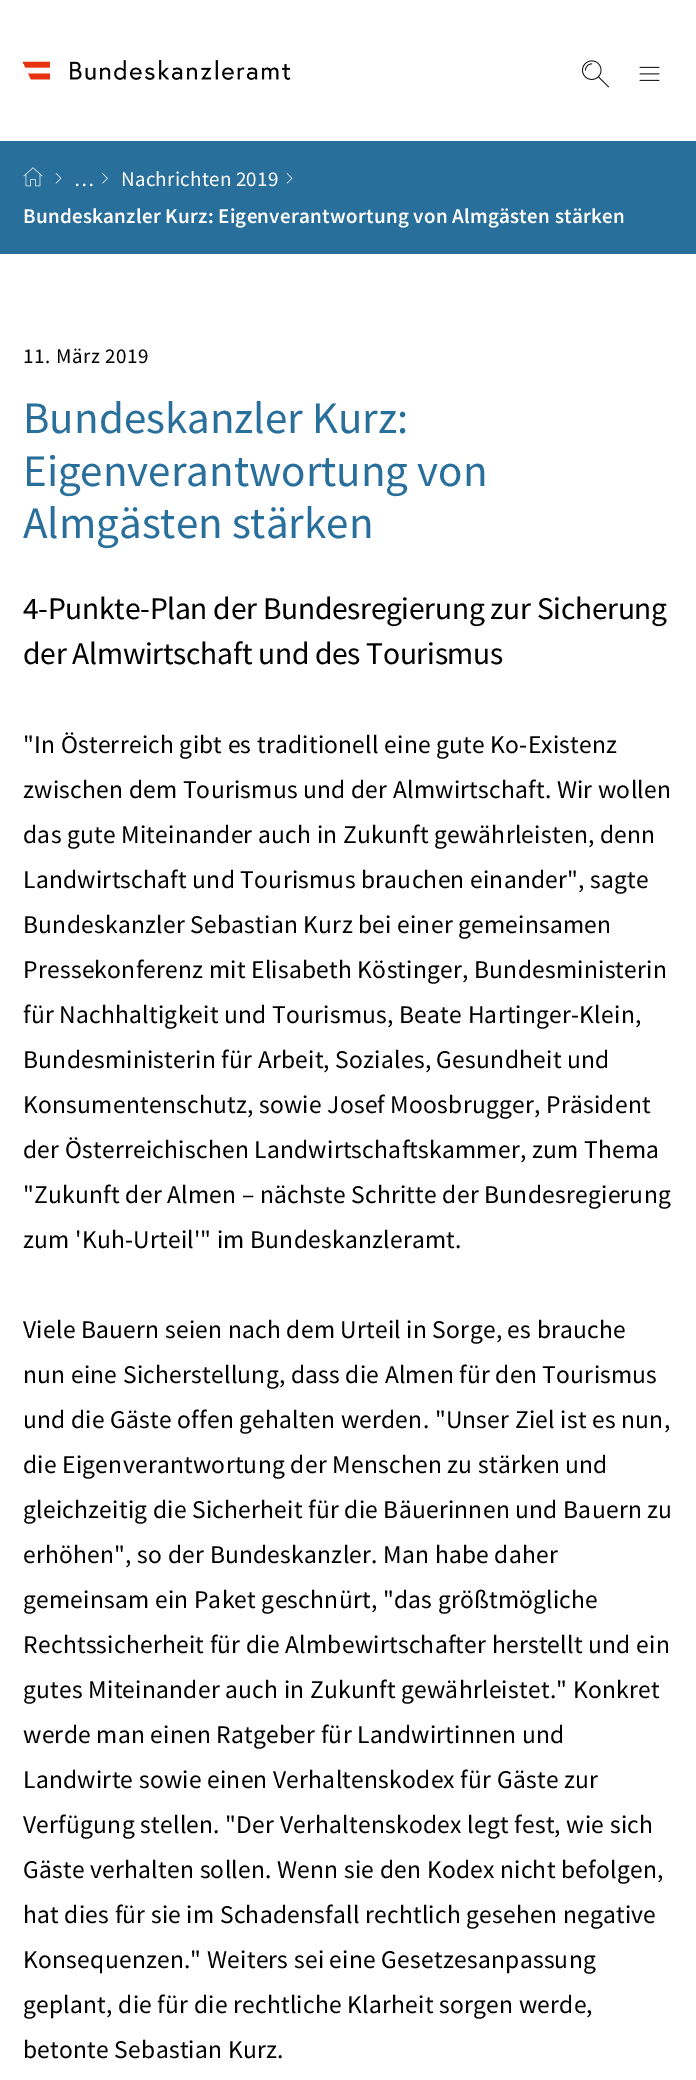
%!PS
<< /PageSize [696 2080] >> setpagedevice
/picture { 5 dict begin { /h /w /y /x /name } { exch def } forall
  gsave x y translate w h scale
  w h 8 [w 0 0 h 0 0] name (r) file false 3 colorimage grestore end } def
0 2080 translate 1 -1 scale
4 setmiterlimit
1 setgray
0 0 696 2080 rectfill
(img1.rgb) 22 60 269 20 picture
(img2.rgb) 582 60 27 28 picture
(img3.rgb) 639 66 21 15 picture
0.157 0.435 0.612 setrgbcolor
0 141 696 113 rectfill
(img4.rgb) 23 167 20 20 picture
(img5.rgb) 55 173 7 11 picture
(img6.rgb) 102 173 6 11 picture
/SourceSansPro-Regular [21 0 0 -21 0 0] selectfont
1 setgray
74 186 moveto 0.25 0 (…) ashow
121 186 moveto 0.25 0 (Nachrichten 2019) ashow
(img5.rgb) 286 173 7 11 picture
/SourceSansPro-SemiBold [21 0 0 -21 0 0] selectfont
23 223 moveto 0.25 0 (Bundeskanzler Kurz: Eigenverantwortung von Almgästen stärken) ashow
/SourceSansPro-Regular [21 0 0 -21 0 0] selectfont
0 setgray
23 363 moveto 0.6 0 (11. März 2019) ashow
/SourceSansPro-Regular [45 0 0 -45 0 0] selectfont
0.157 0.435 0.612 setrgbcolor
23 433 moveto (Bundeskanzler Kurz:) show
23 486 moveto (Eigenverantwortung von) show
23 538 moveto (Almgästen stärken) show
/SourceSansPro-Regular [31.5 0 0 -31.5 0 0] selectfont
0 setgray
23 619 moveto -0.3 0 (4-Punkte-Plan der Bundesregierung zur Sicherung) ashow
23 664 moveto -0.3 0 (der Almwirtschaft und des Tourismus) ashow
/SourceSansPro-Regular [25.5 0 0 -25.5 0 0] selectfont
23 753 moveto 0.25 0 ("In Österreich gibt es traditionell eine gute Ko-Existenz) ashow
23 798 moveto 0.25 0 (zwischen dem Tourismus und der Almwirtschaft. Wir wollen) ashow
23 843 moveto 0.25 0 (das gute Miteinander auch in Zukunft gewährleisten, denn) ashow
23 888 moveto 0.25 0 (Landwirtschaft und Tourismus brauchen einander", sagte) ashow
23 933 moveto 0.25 0 (Bundeskanzler Sebastian Kurz bei einer gemeinsamen) ashow
23 978 moveto 0.25 0 (Pressekonferenz mit Elisabeth Köstinger, Bundesministerin) ashow
23 1023 moveto 0.25 0 (für Nachhaltigkeit und Tourismus, Beate Hartinger-Klein,) ashow
23 1068 moveto 0.25 0 (Bundesministerin für Arbeit, Soziales, Gesundheit und) ashow
23 1113 moveto 0.25 0 (Konsumentenschutz, sowie Josef Moosbrugger, Präsident) ashow
23 1158 moveto 0.25 0 (der Österreichischen Landwirtschaftskammer, zum Thema) ashow
23 1203 moveto 0.25 0 ("Zukunft der Almen – nächste Schritte der Bundesregierung) ashow
23 1248 moveto 0.25 0 (zum 'Kuh-Urteil'" im Bundeskanzleramt.) ashow
23 1338 moveto 0.25 0 (Viele Bauern seien nach dem Urteil in Sorge, es brauche) ashow
23 1383 moveto 0.25 0 (nun eine Sicherstellung, dass die Almen für den Tourismus) ashow
23 1428 moveto 0.25 0 (und die Gäste offen gehalten werden. "Unser Ziel ist es nun,) ashow
23 1473 moveto 0.25 0 (die Eigenverantwortung der Menschen zu stärken und) ashow
23 1518 moveto 0.25 0 (gleichzeitig die Sicherheit für die Bäuerinnen und Bauern zu) ashow
23 1563 moveto 0.25 0 (erhöhen", so der Bundeskanzler. Man habe daher) ashow
23 1608 moveto 0.25 0 (gemeinsam ein Paket geschnürt, "das größtmögliche) ashow
23 1653 moveto 0.25 0 (Rechtssicherheit für die Almbewirtschafter herstellt und ein) ashow
23 1698 moveto 0.25 0 (gutes Miteinander auch in Zukunft gewährleistet." Konkret) ashow
23 1743 moveto 0.25 0 (werde man einen Ratgeber für Landwirtinnen und) ashow
23 1788 moveto 0.25 0 (Landwirte sowie einen Verhaltenskodex für Gäste zur) ashow
23 1833 moveto 0.25 0 (Verfügung stellen. "Der Verhaltenskodex legt fest, wie sich) ashow
23 1878 moveto 0.25 0 (Gäste verhalten sollen. Wenn sie den Kodex nicht befolgen,) ashow
23 1923 moveto 0.25 0 (hat dies für sie im Schadensfall rechtlich gesehen negative) ashow
23 1968 moveto 0.25 0 (Konsequenzen." Weiters sei eine Gesetzesanpassung) ashow
23 2013 moveto 0.25 0 (geplant, die für die rechtliche Klarheit sorgen werde,) ashow
23 2058 moveto 0.25 0 (betonte Sebastian Kurz.) ashow
showpage
